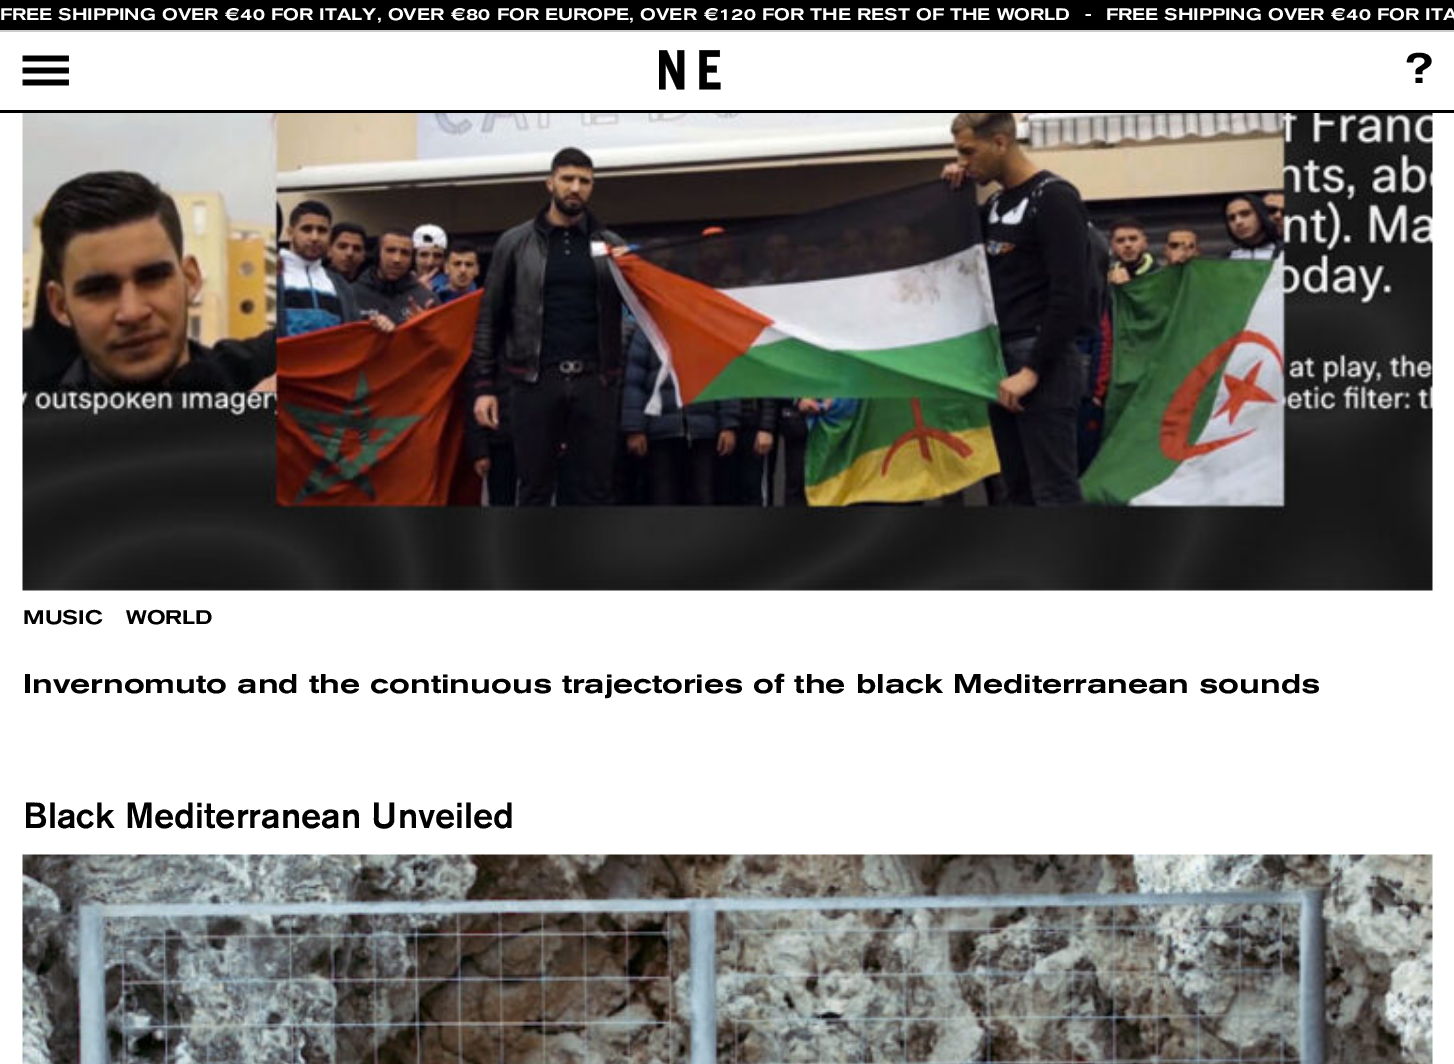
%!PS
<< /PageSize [1454 1064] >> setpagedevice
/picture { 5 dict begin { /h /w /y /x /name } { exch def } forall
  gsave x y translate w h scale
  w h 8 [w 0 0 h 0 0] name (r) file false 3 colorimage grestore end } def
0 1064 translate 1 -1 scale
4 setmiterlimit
1 setgray
0 0 1454 1064 rectfill
0 setgray
0 110 1454 3 rectfill
0 0 1454 30 rectfill
0.8 setgray
0 30 1454 2 rectfill
/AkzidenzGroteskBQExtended-Medium [16.5 0 0 -16.5 0 0] selectfont
1 setgray
0 20 moveto (FREE SHIPPING OVER €40 FOR ITALY, OVER €80 FOR EUROPE, OVER €120 FOR THE REST OF THE WORLD) show
1085 20 moveto (-) show
1106 20 moveto (FREE SHIPPING OVER €40 FOR ITA) show
(img1.rgb) 22 55 47 31 picture
(img2.rgb) 659 50 62 40 picture
/AkzidenzGroteskBQExtended-Medium [42 0 0 -42 0 0] selectfont
0 setgray
1404 83 moveto (?) show
(img3.rgb) 22 113 1411 478 picture
/AkzidenzGroteskBQExtended-Medium [19.5 0 0 -19.5 0 0] selectfont
23 624 moveto (MUSIC) show
126 624 moveto (WORLD) show
/AkzidenzGroteskBQExtended-Medium [27 0 0 -27 0 0] selectfont
23 693 moveto (Invernomuto and the continuous trajectories of the black Mediterranean sounds) show
/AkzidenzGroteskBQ-Medium [36 0 0 -36 0 0] selectfont
23 828 moveto (Black Mediterranean Unveiled) show
(img4.rgb) 22 854 1411 210 picture
showpage
